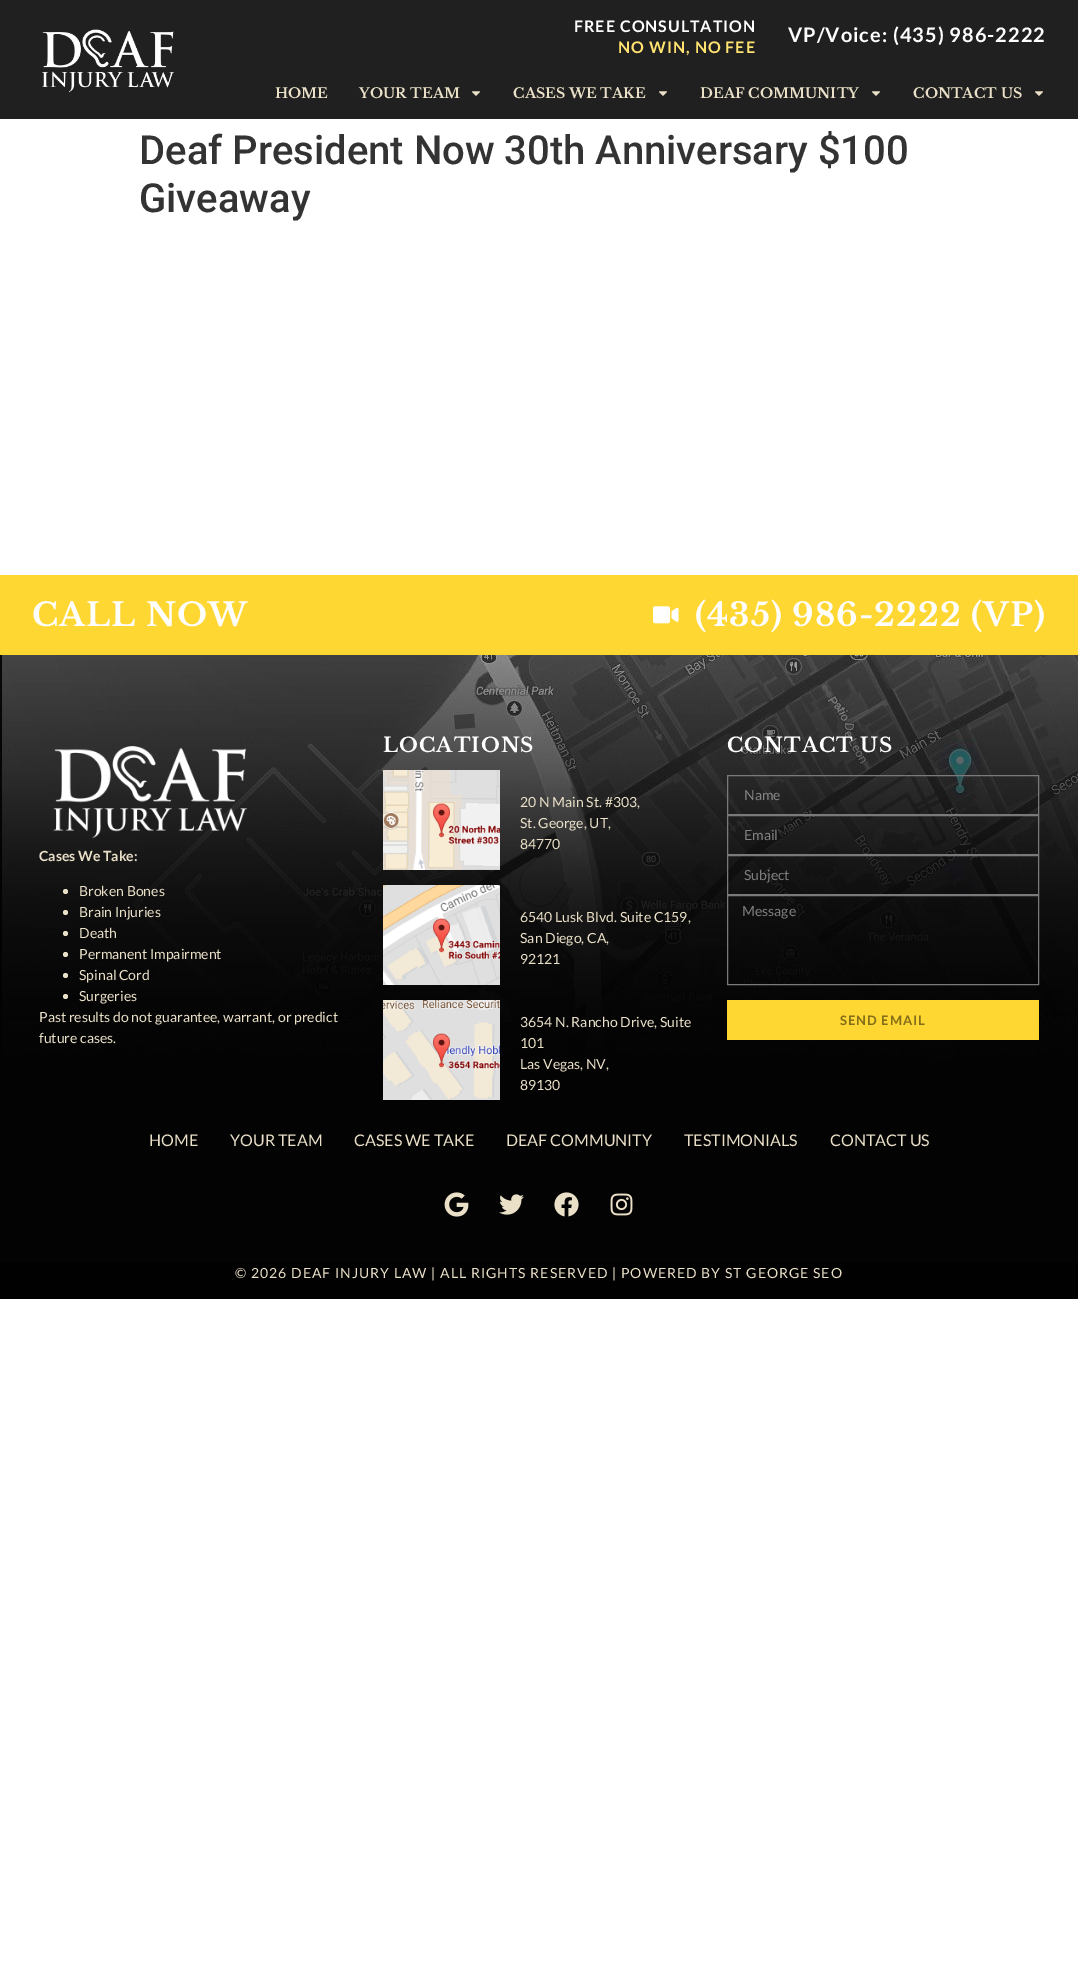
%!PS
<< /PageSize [1078 1978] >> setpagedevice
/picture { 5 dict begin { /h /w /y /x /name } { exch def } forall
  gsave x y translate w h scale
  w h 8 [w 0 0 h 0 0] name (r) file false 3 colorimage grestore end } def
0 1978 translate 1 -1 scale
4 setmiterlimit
1 setgray
0 0 1078 1978 rectfill
0.125 setgray
0 0 1078 119 rectfill
(img1.rgb) 42 29 133 64 picture
/Lato-Bold [16 0 0 -16 0 0] selectfont
1 0.996 0.996 setrgbcolor
574 32 moveto 1 0 (FREE CONSULTATION) ashow
1 0.886 0.439 setrgbcolor
618 53 moveto 1 0 (NO WIN, NO FEE) ashow
/Lato-Bold [20 0 0 -20 0 0] selectfont
1 0.996 0.996 setrgbcolor
788 42 moveto 1 0 (VP/Voice: \(435\) 986-2222) ashow
/LibreBaskerville-Bold [14 0 0 -14 0 0] selectfont
0.918 0.878 0.784 setrgbcolor
275 98 moveto (HOME) show
359 98 moveto (YOUR TEAM) show
(img2.rgb) 472 91 8 5 picture
513 98 moveto (CASES WE TAKE) show
(img2.rgb) 659 91 8 5 picture
700 98 moveto (DEAF COMMUNITY) show
(img2.rgb) 872 91 8 5 picture
913 98 moveto (CONTACT US) show
(img2.rgb) 1035 91 8 5 picture
/Roboto-Medium [40 0 0 -40 0 0] selectfont
0.2 setgray
139 164 moveto (Deaf President Now 30th Anniversary $100) show
139 212 moveto (Giveaway) show
1 0.843 0.196 setrgbcolor
0 575 1078 80 rectfill
/LibreBaskerville-Bold [32 0 0 -32 0 0] selectfont
1 0.996 0.996 setrgbcolor
32 626 moveto 1 0 (CALL NOW) ashow
(img3.rgb) 653 606 26 18 picture
695 626 moveto 1 0 (\(435\) 986-2222 \(VP\)) ashow
(img4.rgb) 0 655 1078 607 picture
(img5.rgb) 53 746 195 93 picture
/Lato-Bold [14 0 0 -14 0 0] selectfont
0.918 0.878 0.784 setrgbcolor
39 861 moveto (Cases We Take:) show
newpath 65.5 891.5 2.5 0 360 arc closepath fill
/Lato-Regular [14 0 0 -14 0 0] selectfont
79 896 moveto (Broken Bones) show
newpath 65.5 912.5 2.5 0 360 arc closepath fill
79 917 moveto (Brain Injuries) show
newpath 65.5 933.5 2.5 0 360 arc closepath fill
79 938 moveto (Death) show
newpath 65.5 954.5 2.5 0 360 arc closepath fill
79 959 moveto (Permanent Impairment) show
newpath 65.5 975.5 2.5 0 360 arc closepath fill
79 980 moveto (Spinal Cord) show
newpath 65.5 996.5 2.5 0 360 arc closepath fill
79 1001 moveto (Surgeries) show
39 1022 moveto (Past results do not guarantee, warrant, or predict) show
39 1043 moveto (future cases.) show
/LibreBaskerville-Bold [20 0 0 -20 0 0] selectfont
1 0.996 0.996 setrgbcolor
383 752 moveto 1 0 (LOCATIONS) ashow
(img6.rgb) 383 770 117 100 picture
/Lato-Regular [14 0 0 -14 0 0] selectfont
0.918 0.878 0.784 setrgbcolor
520 807 moveto (20 N Main St. #303,) show
520 828 moveto (St. George, UT,) show
520 849 moveto (84770) show
(img7.rgb) 383 885 117 100 picture
520 922 moveto (6540 Lusk Blvd. Suite C159,) show
520 943 moveto (San Diego, CA,) show
520 964 moveto (92121) show
(img8.rgb) 383 1000 117 100 picture
520 1027 moveto (3654 N. Rancho Drive, Suite) show
520 1048 moveto (101) show
520 1069 moveto (Las Vegas, NV,) show
520 1090 moveto (89130) show
/LibreBaskerville-Bold [20 0 0 -20 0 0] selectfont
1 0.996 0.996 setrgbcolor
727 752 moveto 1 0 (CONTACT US) ashow
0.478 setgray
727.5 775.5 311 39 rectstroke
/Lato-Regular [14 0 0 -14 0 0] selectfont
0.518 setgray
744 800 moveto (Name) show
0.478 setgray
727.5 815.5 311 39 rectstroke
0.518 setgray
744 840 moveto (Email) show
0.478 setgray
727.5 855.5 311 39 rectstroke
0.494 setgray
744 880 moveto (Subject) show
0.478 setgray
727.5 895.5 311 89 rectstroke
0.494 setgray
742 916 moveto (Message) show
1 0.843 0.196 setrgbcolor
727 1000 312 40 rectfill
/Lato-Bold [13 0 0 -13 0 0] selectfont
0.514 0.431 0.102 setrgbcolor
840 1025 moveto 1 0 (SEND EMAIL) ashow
/Lato-Regular [16 0 0 -16 0 0] selectfont
0.918 0.878 0.784 setrgbcolor
149 1146 moveto (HOME) show
230 1146 moveto (YOUR TEAM) show
354 1146 moveto (CASES WE TAKE) show
506 1146 moveto (DEAF COMMUNITY) show
684 1146 moveto (TESTIMONIALS) show
830 1146 moveto (CONTACT US) show
(img9.rgb) 444 1192 25 25 picture
(img10.rgb) 499 1194 25 21 picture
(img11.rgb) 554 1192 25 25 picture
(img12.rgb) 610 1193 23 23 picture
0.004 setgray
0 1262 1078 37 rectfill
/Lato-Regular [14 0 0 -14 0 0] selectfont
0.918 0.878 0.784 setrgbcolor
235 1278 moveto 1 0 (© 2026 DEAF INJURY LAW | ALL RIGHTS RESERVED | POWERED BY ST GEORGE SEO) ashow
showpage
